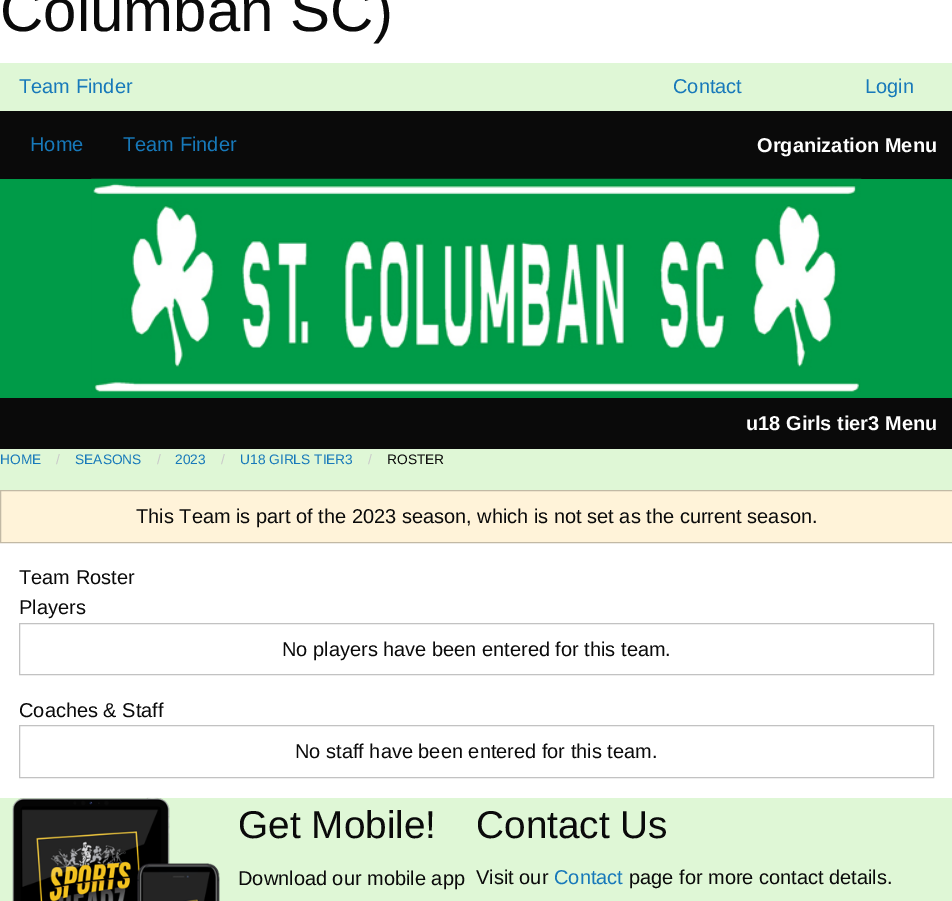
%!PS
<< /PageSize [952 901] >> setpagedevice
/picture { 5 dict begin { /h /w /y /x /name } { exch def } forall
  gsave x y translate w h scale
  w h 8 [w 0 0 h 0 0] name (r) file false 3 colorimage grestore end } def
0 901 translate 1 -1 scale
4 setmiterlimit
1 setgray
0 0 952 901 rectfill
/LiberationSans-Regular [60 0 0 -60 0 0] selectfont
0.039 setgray
0 31 moveto (Columban SC\)) show
0.875 0.969 0.839 setrgbcolor
0 63 952 838 rectfill
/LiberationSans-Regular [20 0 0 -20 0 0] selectfont
0.09 0.475 0.729 setrgbcolor
19 93 moveto (Team Finder) show
673 93 moveto (Contact) show
865 93 moveto (Login) show
0.039 setgray
0 111 952 68 rectfill
0.09 0.475 0.729 setrgbcolor
30 151 moveto (Home) show
123 151 moveto (Team Finder) show
/LiberationSans-Bold [20 0 0 -20 0 0] selectfont
0.996 setgray
757 152 moveto (Organization Menu) show
0 0.608 0.282 setrgbcolor
0 179 952 219 rectfill
(img1.rgb) 91 178 771 214 picture
0.039 setgray
0 398 952 51 rectfill
0.996 setgray
746 430 moveto (u18 Girls tier3 Menu) show
/LiberationSans-Regular [13.75 0 0 -13.75 0 0] selectfont
0.09 0.475 0.729 setrgbcolor
0 464 moveto (HOME) show
0.792 setgray
56 464 moveto (/) show
0.09 0.475 0.729 setrgbcolor
75 464 moveto (SEASONS) show
0.792 setgray
157 464 moveto (/) show
0.09 0.475 0.729 setrgbcolor
175 464 moveto (2023) show
0.792 setgray
221 464 moveto (/) show
0.09 0.475 0.729 setrgbcolor
240 464 moveto (U18 GIRLS TIER3) show
0.792 setgray
368 464 moveto (/) show
0.039 setgray
387 464 moveto (ROSTER) show
1 setgray
0 543 952 255 rectfill
1 0.953 0.851 setrgbcolor
newpath 0.5 490.5 moveto 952.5 490.5 lineto 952.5 542.5 lineto 0.5 542.5 lineto closepath gsave fill grestore
0.761 0.725 0.647 setrgbcolor
stroke
/LiberationSans-Regular [20 0 0 -20 0 0] selectfont
0.039 setgray
136 523 moveto (This Team is part of the 2023 season, which is not set as the current season.) show
19 584 moveto (Team Roster) show
19 614 moveto (Players) show
0.761 setgray
19.5 623.5 914 51 rectstroke
0.039 setgray
282 656 moveto (No players have been entered for this team.) show
19 717 moveto (Coaches & Staff) show
0.761 setgray
19.5 725.5 914 52 rectstroke
0.039 setgray
295 758 moveto (No staff have been entered for this team.) show
(img2.rgb) 12 797 208 104 picture
/LiberationSans-Regular [38.75 0 0 -38.75 0 0] selectfont
238 838 moveto (Get Mobile!) show
/LiberationSans-Regular [20 0 0 -20 0 0] selectfont
238 885 moveto (Download our mobile app) show
/LiberationSans-Regular [38.75 0 0 -38.75 0 0] selectfont
476 838 moveto (Contact Us) show
/LiberationSans-Regular [20 0 0 -20 0 0] selectfont
476 884 moveto (Visit our) show
0.09 0.475 0.729 setrgbcolor
554 884 moveto (Contact) show
0.039 setgray
629 884 moveto (page for more contact details.) show
showpage
